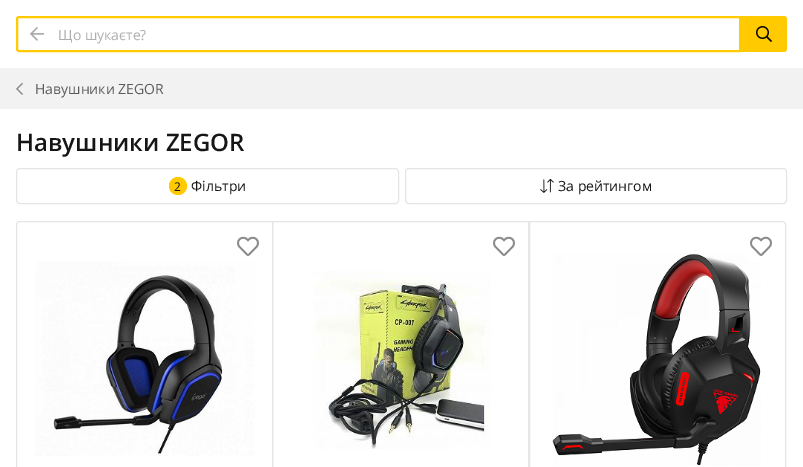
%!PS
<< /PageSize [803 467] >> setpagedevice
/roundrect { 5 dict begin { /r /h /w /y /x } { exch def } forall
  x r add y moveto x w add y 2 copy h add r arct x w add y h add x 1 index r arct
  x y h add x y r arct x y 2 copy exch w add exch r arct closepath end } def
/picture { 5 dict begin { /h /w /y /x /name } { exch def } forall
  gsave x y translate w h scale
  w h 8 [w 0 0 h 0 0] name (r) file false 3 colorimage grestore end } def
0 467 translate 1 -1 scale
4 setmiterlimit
1 setgray
0 0 803 467 rectfill
1 0.792 0 setrgbcolor
2 setlinewidth
newpath 19 17 moveto 740 17 lineto 740 51 lineto 19 51 lineto 18 51 17 50 17 49 curveto 17 19 lineto 17 18 18 17 19 17 curveto closepath stroke
(img1.rgb) 30 27 14 14 picture
/OpenSans-Regular [14 0 0 -14 0 0] selectfont
0.682 setgray
58 40 moveto (Що шукаєте?) show
1 0.792 0 setrgbcolor
newpath 741 16 moveto 784 16 lineto 785.5 16 787 17.5 787 19 curveto 787 49 lineto 787 50.5 785.5 52 784 52 curveto 741 52 lineto closepath fill
(img2.rgb) 756 26 16 16 picture
0.949 setgray
0 68 803 41 rectfill
(img3.rgb) 16 82 7 13 picture
0.361 setgray
35 94 moveto (Навушники ZEGOR) show
/OpenSans-SemiBold [24 0 0 -24 0 0] selectfont
0.086 setgray
16 151 moveto (Навушники ZEGOR) show
0.898 setgray
1 setlinewidth
16.5 168.5 382 35 3.5 roundrect stroke
1 0.792 0 setrgbcolor
newpath 178 186 9 0 360 arc closepath fill
/OpenSans-Regular [12 0 0 -12 0 0] selectfont
0.086 setgray
174 191 moveto (2) show
/OpenSans-Regular [14 0 0 -14 0 0] selectfont
191 191 moveto (Фільтри) show
0.898 setgray
405.5 168.5 381 35 3.5 roundrect stroke
(img4.rgb) 540 178 14 15 picture
0.086 setgray
558 191 moveto (За рейтингом) show
0.898 setgray
newpath 20 221.5 moveto 272.5 221.5 lineto 272.5 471.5 lineto 16.5 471.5 lineto 16.5 225 lineto 16.5 223 18 221.5 20 221.5 curveto closepath stroke
(img6.rgb) 35 261 220 195 picture
1 setgray
232 230 32 32 4 roundrect fill
(img5.rgb) 237 236 22 20 picture
0.898 setgray
272.5 221.5 256 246 rectstroke
(img5.rgb) 493 236 22 20 picture
(img7.rgb) 313 271 178 178 picture
newpath 529.5 221.5 moveto 782 221.5 lineto 784 221.5 785.5 223 785.5 225 curveto 785.5 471.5 lineto 529.5 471.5 lineto closepath stroke
(img8.rgb) 552 253 209 213 picture
1 setgray
745 230 32 32 4 roundrect fill
(img5.rgb) 750 236 22 20 picture
showpage
